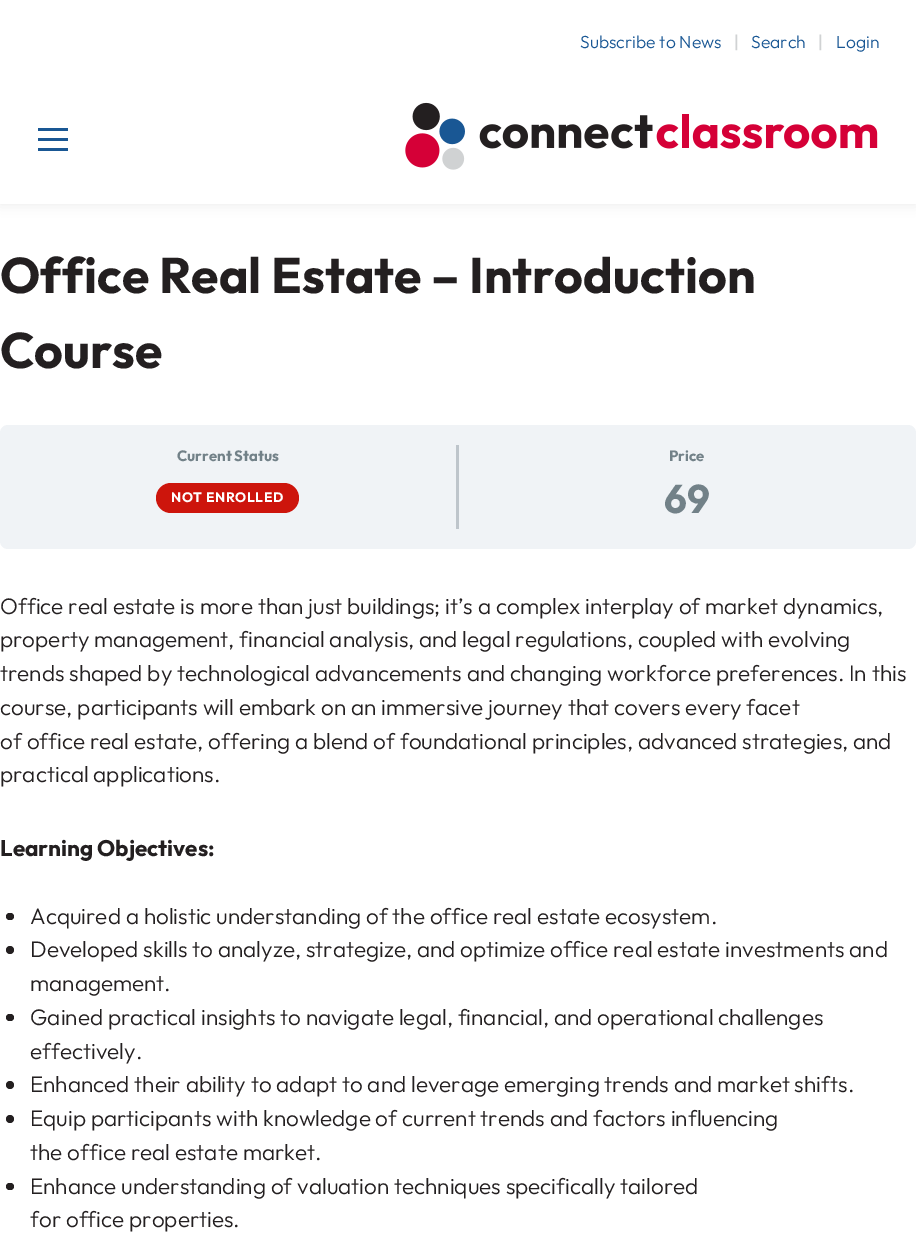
%!PS
<< /PageSize [916 1240] /PageUsesTransparency true >> setpagedevice
/alpha { dup .setfillconstantalpha .setstrokeconstantalpha } def
/roundrect { 5 dict begin { /r /h /w /y /x } { exch def } forall
  x r add y moveto x w add y 2 copy h add r arct x w add y h add x 1 index r arct
  x y h add x y r arct x y 2 copy exch w add exch r arct closepath end } def
/shadow { 12 dict begin { /a /b /q /h /w /y /x } { exch def } forall gsave /was 0 def
  9 -2 -9 { dup b mul 4 div /e exch def 1 sub .425 mul 2.718 exch exp 1 add a .99 .min exch div /now exch def
    1 1 now sub 1 was sub div sub alpha /was now def
    w h .min e 2 mul add 0 gt { x e sub y e sub w e 2 mul add h e 2 mul add
      q e add b .6 mul add w h .min 2 div e add .min 0 .max roundrect fill } if } for grestore end } def
/picture { 5 dict begin { /h /w /y /x /name } { exch def } forall
  gsave x y translate w h scale
  w h 8 [w 0 0 h 0 0] name (r) file false 3 colorimage grestore end } def
0 .pushpdf14devicefilter
0 1240 translate 1 -1 scale
4 setmiterlimit
1 setgray
0 0 916 1240 rectfill
0 setgray
0 0 916 204 0 6 0.08 shadow
1 setgray
0 0 916 204 rectfill
/Outfit-Light [17.5 0 0 -17.5 0 0] selectfont
0.098 0.341 0.58 setrgbcolor
580 48 moveto (Subscribe to News) show
/Outfit-Medium [17.5 0 0 -17.5 0 0] selectfont
0.816 0.824 0.827 setrgbcolor
734 48 moveto (|) show
/Outfit-Light [17.5 0 0 -17.5 0 0] selectfont
0.098 0.341 0.58 setrgbcolor
751 48 moveto (Search) show
/Outfit-Medium [17.5 0 0 -17.5 0 0] selectfont
0.816 0.824 0.827 setrgbcolor
818 48 moveto (|) show
/Outfit-Light [17.5 0 0 -17.5 0 0] selectfont
0.098 0.341 0.58 setrgbcolor
836 48 moveto (Login) show
38 128 30 3 rectfill
38 138 30 3 rectfill
38 148 30 3 rectfill
(img1.rgb) 405 102 473 68 picture
/Outfit-Bold [50 0 0 -50 0 0] selectfont
0.137 0.122 0.125 setrgbcolor
0 293 moveto (Office Real Estate – Introduction) show
0 368 moveto (Course) show
0.941 0.953 0.965 setrgbcolor
0 425 916 124 8 roundrect fill
0.745 0.773 0.796 setrgbcolor
456 445 3 84 rectfill
/Outfit-Bold [15 0 0 -15 0 0] selectfont
0.447 0.506 0.533 setrgbcolor
177 461 moveto (Current Status) show
0.804 0.082 0.047 setrgbcolor
156 483 143 30 15 roundrect fill
/Outfit-Bold [13.75 0 0 -13.75 0 0] selectfont
1 setgray
171 502 moveto 0.6 0 (NOT ENROLLED) ashow
/Outfit-Bold [15 0 0 -15 0 0] selectfont
0.447 0.506 0.533 setrgbcolor
669 461 moveto (Price) show
/Outfit-Bold [40 0 0 -40 0 0] selectfont
664 513 moveto (69) show
/Outfit-Light [22.5 0 0 -22.5 0 0] selectfont
0.137 0.122 0.125 setrgbcolor
0 614 moveto (Office real estate is more than just buildings; it’s a complex interplay of market dynamics,) show
0 647 moveto (property management, financial analysis, and legal regulations, coupled with evolving) show
0 681 moveto (trends shaped by technological advancements and changing workforce preferences. In this) show
0 715 moveto (course, participants will embark on an immersive journey that covers every facet) show
0 749 moveto (of office real estate, offering a blend of foundational principles, advanced strategies, and) show
0 782 moveto (practical applications.) show
/Outfit-Bold [22.5 0 0 -22.5 0 0] selectfont
0 856 moveto (Learning Objectives:) show
6 913 8 7 3.5 roundrect fill
/Outfit-Light [22.5 0 0 -22.5 0 0] selectfont
30 924 moveto (Acquired a holistic understanding of the office real estate ecosystem.) show
newpath 10 950 4 0 360 arc closepath fill
30 957 moveto (Developed skills to analyze, strategize, and optimize office real estate investments and) show
30 991 moveto (management.) show
6 1014 8 7 3.5 roundrect fill
30 1025 moveto (Gained practical insights to navigate legal, financial, and operational challenges) show
30 1059 moveto (effectively.) show
newpath 10 1085 4 0 360 arc closepath fill
30 1092 moveto (Enhanced their ability to adapt to and leverage emerging trends and market shifts.) show
newpath 10 1119 4 0 360 arc closepath fill
30 1126 moveto (Equip participants with knowledge of current trends and factors influencing) show
30 1160 moveto (the office real estate market.) show
6 1183 8 7 3.5 roundrect fill
30 1194 moveto (Enhance understanding of valuation techniques specifically tailored) show
30 1227 moveto (for office properties.) show
.poppdf14devicefilter showpage
